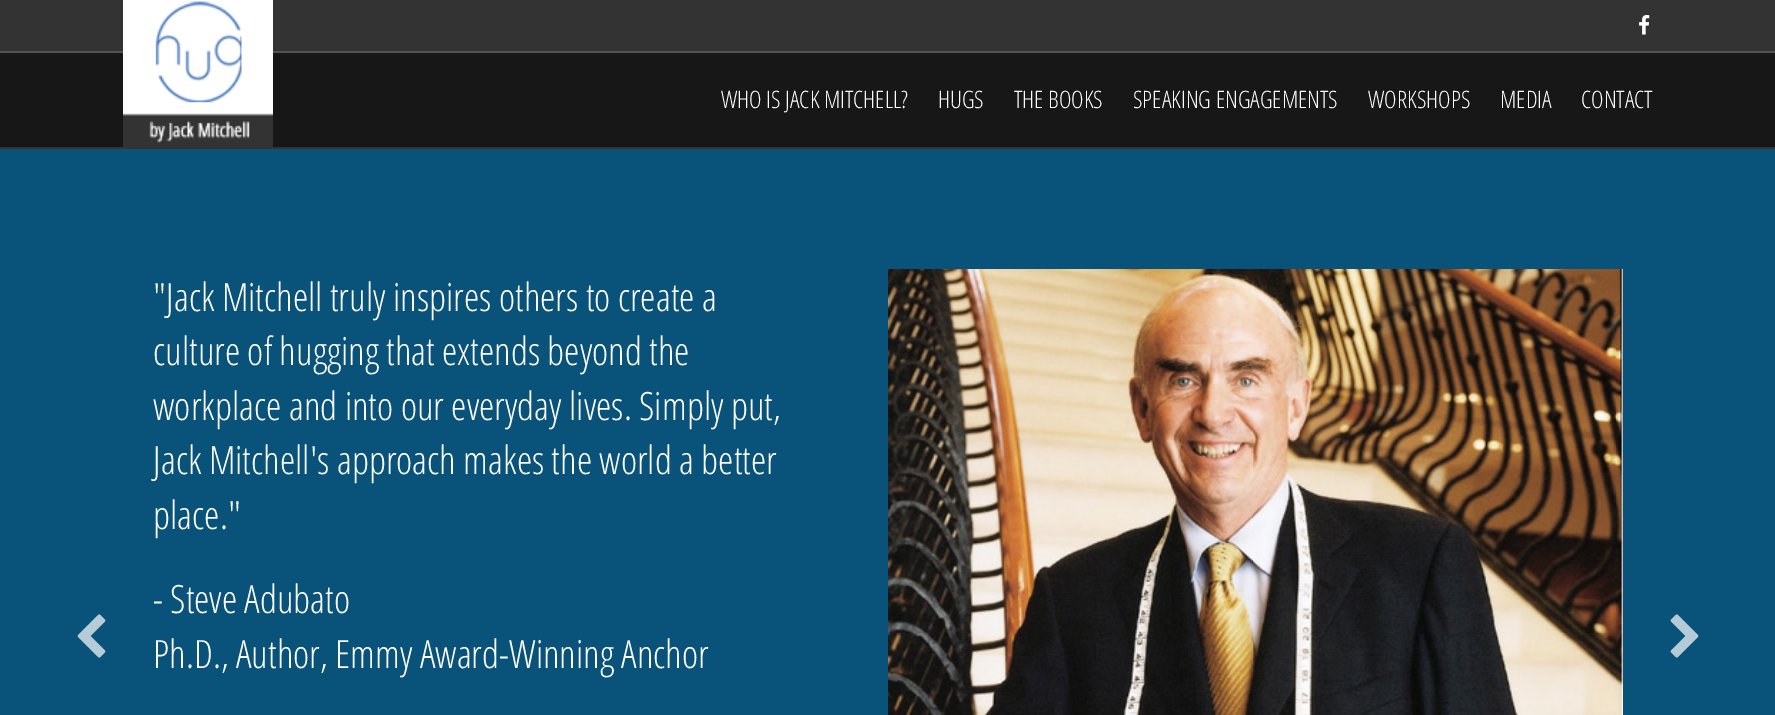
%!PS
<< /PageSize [1775 715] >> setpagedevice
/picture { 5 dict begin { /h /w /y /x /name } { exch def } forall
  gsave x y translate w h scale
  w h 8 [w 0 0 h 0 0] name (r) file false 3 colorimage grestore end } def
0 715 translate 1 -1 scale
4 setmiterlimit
0.2 setgray
0 0 1775 715 rectfill
0.329 setgray
0 51 1775 2 rectfill
(img1.rgb) 1639 15 11 20 picture
0.09 setgray
0 53 1775 94 rectfill
(img2.rgb) 123 0 150 147 picture
/OpenSansCondensed-Light [24 0 0 -24 0 0] selectfont
1 setgray
721 108 moveto (WHO IS JACK MITCHELL?) show
938 108 moveto (HUGS) show
1014 108 moveto (THE BOOKS) show
1133 108 moveto (SPEAKING ENGAGEMENTS) show
1368 108 moveto (WORKSHOPS) show
1500 108 moveto (MEDIA) show
1581 108 moveto (CONTACT) show
0.035 0.322 0.478 setrgbcolor
0 149 1775 566 rectfill
/OpenSansCondensed-Light [39 0 0 -39 0 0] selectfont
1 setgray
153 311 moveto ("Jack Mitchell truly inspires others to create a) show
153 365 moveto (culture of hugging that extends beyond the) show
153 420 moveto (workplace and into our everyday lives. Simply put,) show
153 474 moveto (Jack Mitchell's approach makes the world a better) show
153 529 moveto (place.") show
153 613 moveto (- Steve Adubato) show
153 668 moveto (Ph.D., Author, Emmy Award-Winning Anchor) show
(img3.rgb) 888 269 735 446 picture
(img4.rgb) 77 614 29 44 picture
(img5.rgb) 1670 614 29 44 picture
showpage
